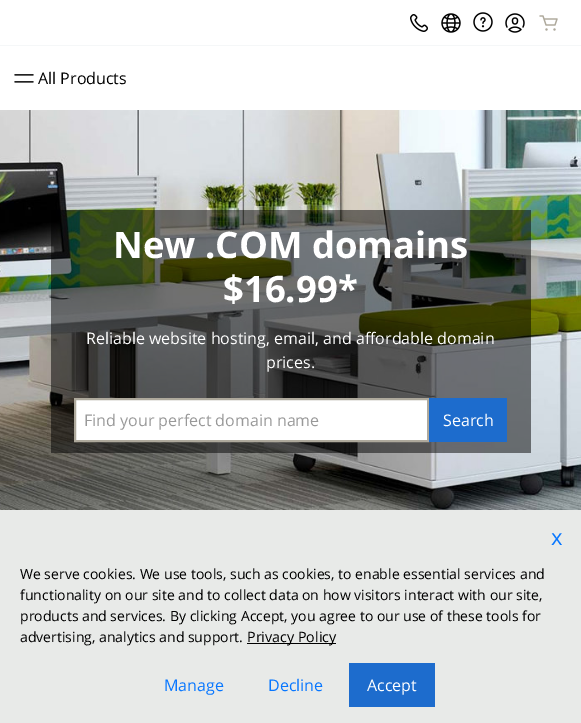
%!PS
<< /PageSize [581 723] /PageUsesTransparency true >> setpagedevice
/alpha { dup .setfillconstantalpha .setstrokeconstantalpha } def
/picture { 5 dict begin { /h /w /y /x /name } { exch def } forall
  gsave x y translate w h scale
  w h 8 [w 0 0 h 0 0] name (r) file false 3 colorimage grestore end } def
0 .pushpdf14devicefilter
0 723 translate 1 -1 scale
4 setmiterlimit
1 setgray
0 0 581 723 rectfill
0.961 0.969 0.973 setrgbcolor
0 45 581 1 rectfill
(img1.rgb) 410 14 18 18 picture
(img2.rgb) 441 13 20 20 picture
(img3.rgb) 473 12 20 20 picture
(img4.rgb) 505 13 20 20 picture
(img5.rgb) 539 15 19 16 picture
(img6.rgb) 14 74 20 9 picture
/OpenSans-Regular [16 0 0 -16 0 0] selectfont
0 setgray
38 84 moveto (All Products) show
(img7.rgb) 0 110 581 400 picture
0.5 alpha
51 210 480 243 rectfill
/OpenSans-Bold [36.5 0 0 -36.5 0 0] selectfont
1 alpha
1 setgray
113 258 moveto (New .COM domains) show
223 302 moveto ($16.99*) show
/OpenSans-Regular [16 0 0 -16 0 0] selectfont
86 344 moveto (Reliable website hosting, email, and affordable domain) show
266 368 moveto (prices.) show
newpath 75 399 moveto 428 399 lineto 428 441 lineto 75 441 lineto closepath gsave fill grestore
0.682 0.663 0.612 setrgbcolor
2 setlinewidth
stroke
0.6 setgray
84 426 moveto (Find your perfect domain name) show
0.114 0.424 0.804 setrgbcolor
429 398 78 44 rectfill
1 setgray
443 426 moveto (Search) show
0.91 0.918 0.91 setrgbcolor
0 510 581 213 rectfill
/OpenSans-Regular [22 0 0 -22 0 0] selectfont
0.031 0.467 1 setrgbcolor
551 545 moveto (x) show
/OpenSans-Regular [14 0 0 -14 0 0] selectfont
0 setgray
20 579 moveto (We serve cookies. We use tools, such as cookies, to enable essential services and) show
20 600 moveto (functionality on our site and to collect data on how visitors interact with our site,) show
20 621 moveto (products and services. By clicking Accept, you agree to our use of these tools for) show
20 642 moveto (advertising, analytics and support.) show
247 643 89 1 rectfill
/OpenSans-Regular [14.25 0 0 -14.25 0 0] selectfont
247 642 moveto (Privacy Policy) show
/OpenSans-Regular [16 0 0 -16 0 0] selectfont
0.031 0.467 1 setrgbcolor
164 691 moveto (Manage) show
268 691 moveto (Decline) show
0.114 0.424 0.804 setrgbcolor
349 663 86 44 rectfill
1 setgray
367 691 moveto (Accept) show
.poppdf14devicefilter showpage
